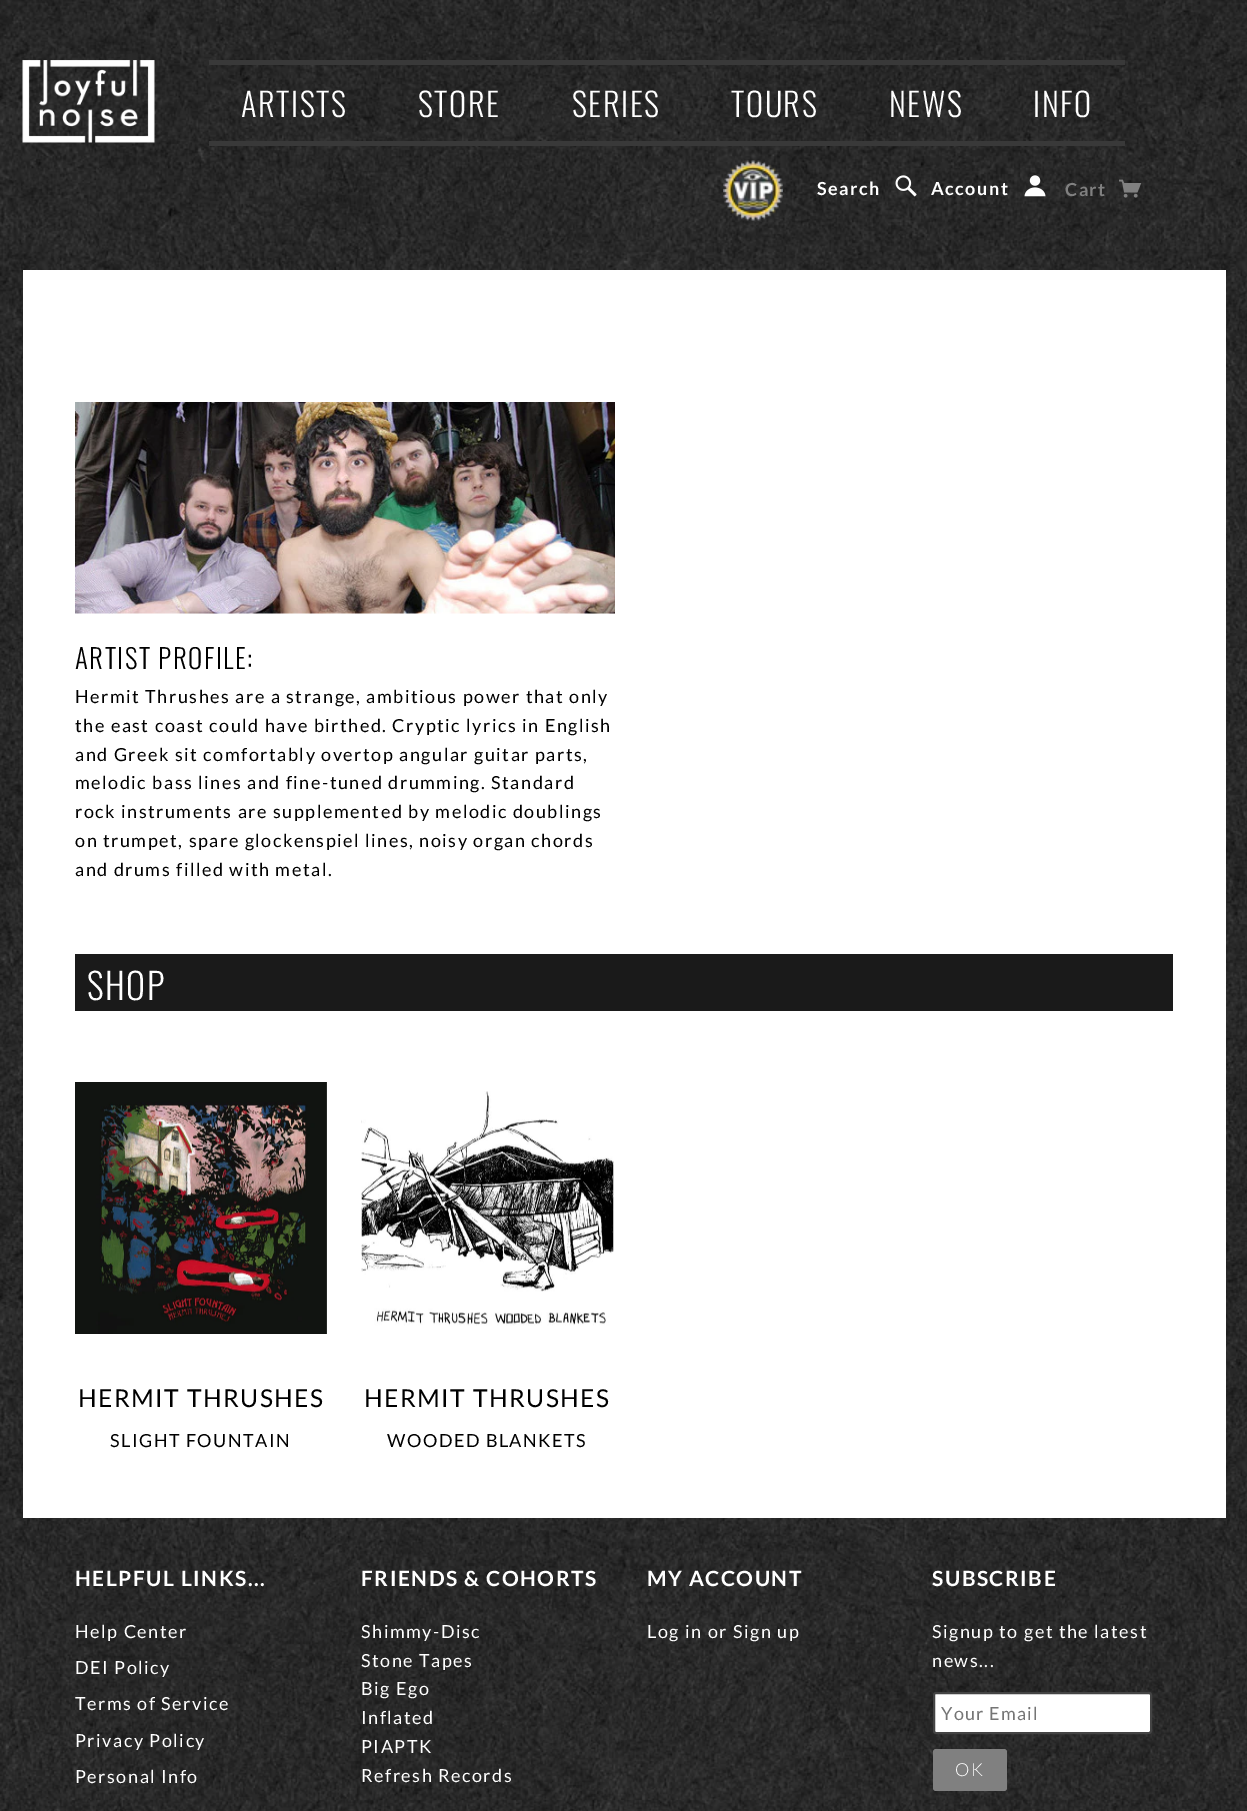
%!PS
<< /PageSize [1247 1811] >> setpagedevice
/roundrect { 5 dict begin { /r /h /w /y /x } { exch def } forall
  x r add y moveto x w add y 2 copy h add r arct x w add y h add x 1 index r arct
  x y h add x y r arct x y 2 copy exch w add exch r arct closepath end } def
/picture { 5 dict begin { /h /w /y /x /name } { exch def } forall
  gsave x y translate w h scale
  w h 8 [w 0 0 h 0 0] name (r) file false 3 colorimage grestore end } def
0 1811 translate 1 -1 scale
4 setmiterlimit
1 setgray
0 0 1247 1811 rectfill
(img1.rgb) 0 0 1247 1811 picture
(img2.rgb) 23 15 1203 1796 picture
(img3.rgb) 22 60 133 83 picture
0.224 setgray
209 60 916 5 rectfill
209 141 916 5 rectfill
/Oswald-Light [32.5 0 0 -32.5 0 0] selectfont
1 setgray
241 117 moveto 1.5 0 (ARTISTS) ashow
418 117 moveto 1.5 0 (STORE) ashow
572 117 moveto 1.5 0 (SERIES) ashow
731 117 moveto 1.5 0 (TOURS) ashow
889 117 moveto 1.5 0 (NEWS) ashow
1033 117 moveto 1.5 0 (INFO) ashow
(img4.rgb) 723 160 60 61 picture
/Lato-Bold [18 0 0 -18 0 0] selectfont
817 195 moveto 1.5 0 (Search) ashow
(img5.rgb) 895 175 22 22 picture
931 195 moveto 1.5 0 (Account) ashow
(img6.rgb) 1024 175 22 22 picture
0.502 setgray
1065 196 moveto 1.5 0 (Cart) ashow
(img7.rgb) 1119 179 23 19 picture
1 setgray
23 270 1203 1248 rectfill
(img8.rgb) 75 402 540 212 picture
/Oswald-Light [27 0 0 -27 0 0] selectfont
0 setgray
75 669 moveto 1.5 0 (ARTIST PROFILE:) ashow
/Lato-Regular [18 0 0 -18 0 0] selectfont
75 703 moveto 1.5 0 (Hermit Thrushes are a strange, ambitious power that only) ashow
75 732 moveto 1.5 0 (the east coast could have birthed. Cryptic lyrics in English) ashow
75 761 moveto 1.5 0 (and Greek sit comfortably overtop angular guitar parts,) ashow
75 789 moveto 1.5 0 (melodic bass lines and fine-tuned drumming. Standard) ashow
75 818 moveto 1.5 0 (rock instruments are supplemented by melodic doublings) ashow
75 847 moveto 1.5 0 (on trumpet, spare glockenspiel lines, noisy organ chords) ashow
75 876 moveto 1.5 0 (and drums filled with metal.) ashow
0.102 setgray
75 954 1098 57 rectfill
/Oswald-Light [36 0 0 -36 0 0] selectfont
1 setgray
87 1000 moveto 1.5 0 (SHOP) ashow
(img9.rgb) 75 1082 252 252 picture
/Lato-Regular [24.6 0 0 -24.6 0 0] selectfont
0 setgray
78 1407 moveto 1.5 0 (HERMIT THRUSHES) ashow
/Lato-Regular [18 0 0 -18 0 0] selectfont
110 1447 moveto 1.5 0 (SLIGHT FOUNTAIN) ashow
(img10.rgb) 361 1091 253 235 picture
/Lato-Regular [24.6 0 0 -24.6 0 0] selectfont
364 1407 moveto 1.5 0 (HERMIT THRUSHES) ashow
/Lato-Regular [18 0 0 -18 0 0] selectfont
387 1447 moveto 1.5 0 (WOODED BLANKETS) ashow
/Lato-Bold [21 0 0 -21 0 0] selectfont
1 setgray
75 1586 moveto 1.5 0 (HELPFUL LINKS...) ashow
/Lato-Regular [18 0 0 -18 0 0] selectfont
75 1638 moveto 1.5 0 (Help Center) ashow
75 1674 moveto 1.5 0 (DEI Policy) ashow
75 1710 moveto 1.5 0 (Terms of Service) ashow
75 1747 moveto 1.5 0 (Privacy Policy) ashow
75 1783 moveto 1.5 0 (Personal Info) ashow
/Lato-Bold [21 0 0 -21 0 0] selectfont
361 1586 moveto 1.5 0 (FRIENDS & COHORTS) ashow
/Lato-Regular [18 0 0 -18 0 0] selectfont
361 1638 moveto 1.5 0 (Shimmy-Disc) ashow
361 1667 moveto 1.5 0 (Stone Tapes) ashow
361 1695 moveto 1.5 0 (Big Ego) ashow
361 1724 moveto 1.5 0 (Inflated) ashow
361 1753 moveto 1.5 0 (PIAPTK) ashow
361 1782 moveto 1.5 0 (Refresh Records) ashow
/Lato-Bold [21 0 0 -21 0 0] selectfont
647 1586 moveto 1.5 0 (MY ACCOUNT) ashow
/Lato-Regular [18 0 0 -18 0 0] selectfont
647 1638 moveto 1.5 0 (Log in or Sign up) ashow
/Lato-Bold [21 0 0 -21 0 0] selectfont
932 1586 moveto 1.5 0 (SUBSCRIBE) ashow
/Lato-Regular [18 0 0 -18 0 0] selectfont
932 1638 moveto 1.5 0 (Signup to get the latest) ashow
932 1667 moveto 1.5 0 (news...) ashow
934 1693 217 40 2 roundrect gsave fill grestore
0.267 setgray
2 setlinewidth
stroke
0.459 setgray
941 1720 moveto 1.25 0 (Your Email) ashow
0.502 setgray
933 1749 74 42 3 roundrect fill
/Lato-Light [18 0 0 -18 0 0] selectfont
1 setgray
955 1776 moveto 1.5 0 (OK) ashow
showpage
